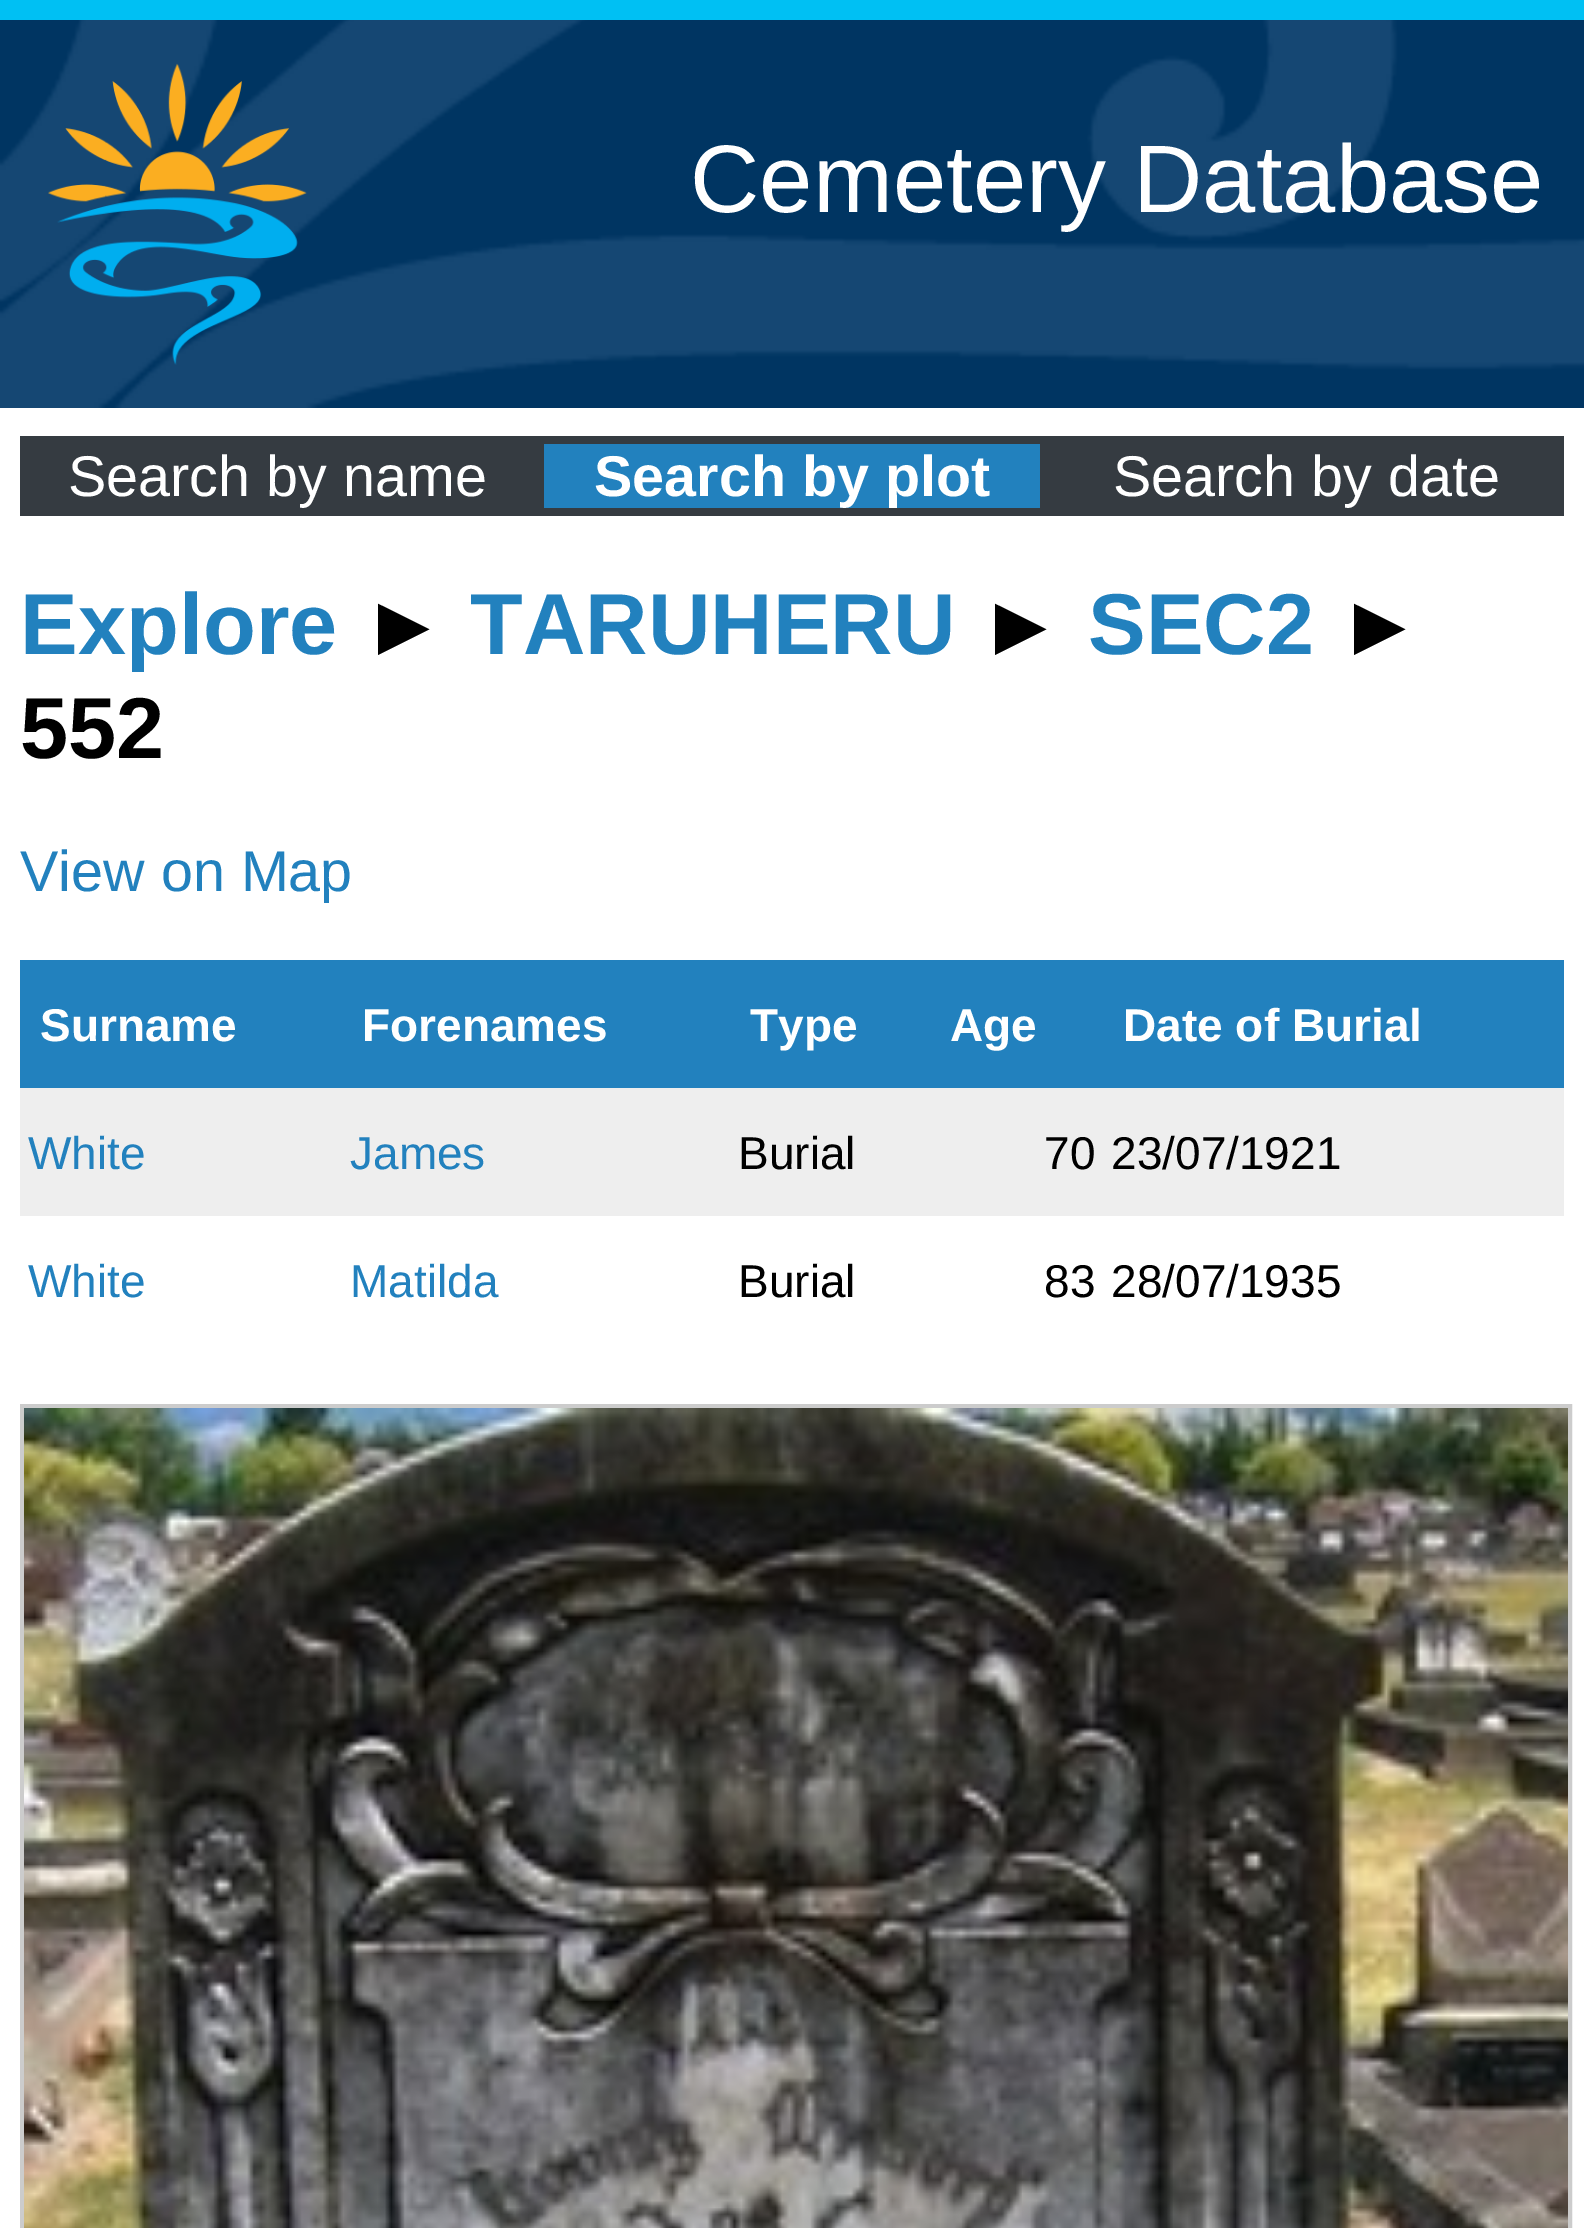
%!PS
<< /PageSize [1584 2228] >> setpagedevice
/picture { 5 dict begin { /h /w /y /x /name } { exch def } forall
  gsave x y translate w h scale
  w h 8 [w 0 0 h 0 0] name (r) file false 3 colorimage grestore end } def
0 2228 translate 1 -1 scale
4 setmiterlimit
1 setgray
0 0 1584 2228 rectfill
(img1.rgb) 0 20 1584 388 picture
0 0.753 0.953 setrgbcolor
0 0 1584 20 rectfill
(img2.rgb) 48 63 259 302 picture
/LiberationSans-Regular [96 0 0 -96 0 0] selectfont
1 setgray
690 212 moveto (Cemetery Database) show
0.208 0.231 0.255 setrgbcolor
20 436 1544 80 rectfill
/LiberationSans-Regular [57.5 0 0 -57.5 0 0] selectfont
1 setgray
68 496 moveto (Search by name) show
0.133 0.506 0.745 setrgbcolor
544 444 496 64 rectfill
/LiberationSans-Bold [57.5 0 0 -57.5 0 0] selectfont
1 setgray
594 496 moveto (Search by plot) show
/LiberationSans-Regular [57.5 0 0 -57.5 0 0] selectfont
1113 496 moveto (Search by date) show
/LiberationSans-Bold [86.5 0 0 -86.5 0 0] selectfont
0.133 0.506 0.745 setrgbcolor
20 654 moveto (Explore) show
0 setgray
361 654 moveto (►) show
0.133 0.506 0.745 setrgbcolor
470 654 moveto (TARUHERU) show
0 setgray
978 654 moveto (►) show
0.133 0.506 0.745 setrgbcolor
1088 654 moveto (SEC2) show
0 setgray
1337 654 moveto (►) show
20 758 moveto (552) show
/LiberationSans-Regular [57.5 0 0 -57.5 0 0] selectfont
0.133 0.506 0.745 setrgbcolor
20 891 moveto (View on Map) show
20 960 1544 128 rectfill
/LiberationSans-Bold [46 0 0 -46 0 0] selectfont
1 setgray
40 1041 moveto (Surname) show
362 1041 moveto (Forenames) show
750 1041 moveto (Type) show
950 1041 moveto (Age) show
1123 1041 moveto (Date of Burial) show
0.933 setgray
20 1088 1544 128 rectfill
/LiberationSans-Regular [46 0 0 -46 0 0] selectfont
0.133 0.506 0.745 setrgbcolor
28 1169 moveto (White) show
350 1169 moveto (James) show
0 setgray
738 1169 moveto (Burial) show
1044 1169 moveto (70) show
1111 1169 moveto (23/07/1921) show
0.133 0.506 0.745 setrgbcolor
28 1297 moveto (White) show
350 1297 moveto (Matilda) show
0 setgray
738 1297 moveto (Burial) show
1044 1297 moveto (83) show
1111 1297 moveto (28/07/1935) show
0.8 setgray
4 setlinewidth
22 1406 1548 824 rectstroke
(img3.rgb) 24 1408 1544 820 picture
showpage
